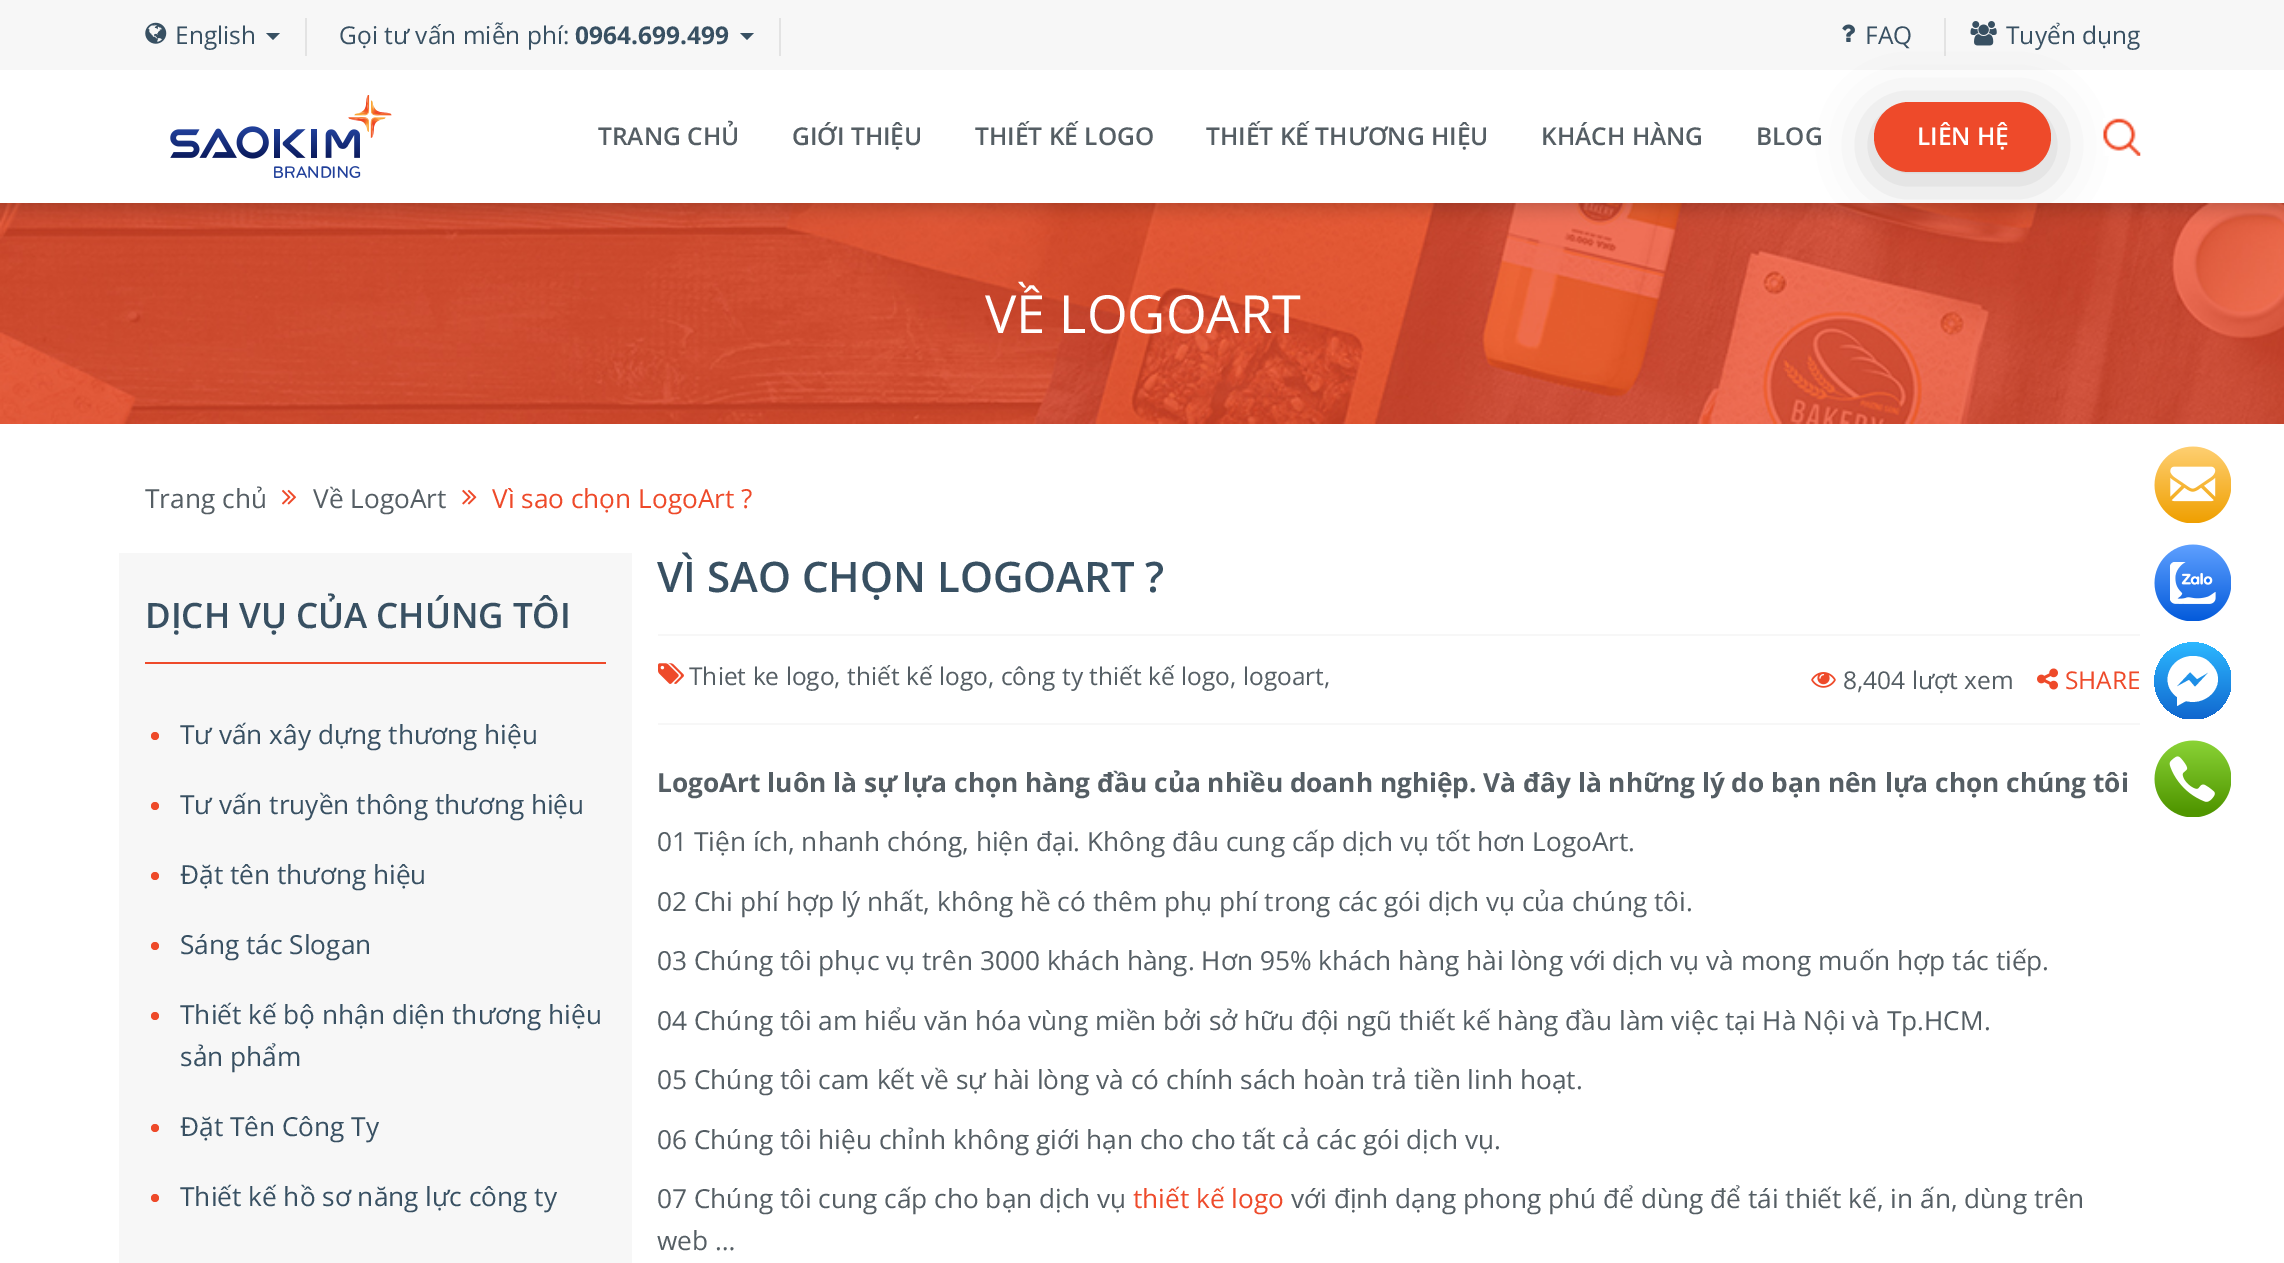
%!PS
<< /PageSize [2284 1263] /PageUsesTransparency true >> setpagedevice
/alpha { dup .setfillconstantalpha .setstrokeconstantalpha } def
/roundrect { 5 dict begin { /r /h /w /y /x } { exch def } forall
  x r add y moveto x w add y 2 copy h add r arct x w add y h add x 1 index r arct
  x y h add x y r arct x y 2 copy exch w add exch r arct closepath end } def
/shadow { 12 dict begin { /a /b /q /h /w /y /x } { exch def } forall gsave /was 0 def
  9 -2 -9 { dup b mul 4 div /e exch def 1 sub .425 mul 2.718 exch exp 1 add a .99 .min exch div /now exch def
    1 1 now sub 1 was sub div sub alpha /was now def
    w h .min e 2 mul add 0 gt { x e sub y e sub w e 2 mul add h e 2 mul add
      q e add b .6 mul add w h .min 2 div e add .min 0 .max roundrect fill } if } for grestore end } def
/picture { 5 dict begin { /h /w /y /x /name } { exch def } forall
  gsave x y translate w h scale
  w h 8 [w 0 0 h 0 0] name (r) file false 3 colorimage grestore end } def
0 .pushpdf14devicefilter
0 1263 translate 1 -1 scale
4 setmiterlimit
1 setgray
0 0 2284 1263 rectfill
0.969 setgray
0 0 2284 70 rectfill
(img1.rgb) 145 22 22 22 picture
/OpenSans-Regular [24.5 0 0 -24.5 0 0] selectfont
0.22 0.314 0.384 setrgbcolor
175 44 moveto (English) show
newpath 266 33 moveto 280 33 lineto 273 40 lineto closepath fill
0.89 setgray
305 18 2 38 rectfill
0.22 0.314 0.384 setrgbcolor
339 44 moveto (Gọi tư vấn miễn phí:) show
/OpenSans-Bold [24.5 0 0 -24.5 0 0] selectfont
575 44 moveto (0964.699.499) show
newpath 740 33 moveto 754 33 lineto 747 40 lineto closepath fill
0.89 setgray
779 18 2 38 rectfill
(img2.rgb) 1842 24 13 18 picture
/OpenSans-Regular [24.5 0 0 -24.5 0 0] selectfont
0.22 0.314 0.384 setrgbcolor
1865 44 moveto (FAQ) show
0.89 setgray
1944 18 2 38 rectfill
(img3.rgb) 1970 21 27 25 picture
0.22 0.314 0.384 setrgbcolor
2006 44 moveto (Tuyển dụng) show
(img4.rgb) 170 95 222 84 picture
/OpenSans-SemiBold [24.5 0 0 -24.5 0 0] selectfont
0.333 0.369 0.392 setrgbcolor
598 145 moveto (TRANG CHỦ) show
792 145 moveto (GIỚI THIỆU) show
975 145 moveto (THIẾT KẾ LOGO) show
1206 145 moveto (THIẾT KẾ THƯƠNG HIỆU) show
1541 145 moveto (KHÁCH HÀNG) show
1756 145 moveto (BLOG) show
(img6.rgb) 0 203 2284 221 picture
0 setgray
1874 110 177 70 35 26 0.2 shadow
0.933 0.29 0.165 setrgbcolor
1874 102 177 70 35 roundrect fill
1 setgray
1917 145 moveto (LIÊN HỆ) show
(img5.rgb) 2103 118 38 38 picture
/OpenSans-Regular [52.5 0 0 -52.5 0 0] selectfont
985 333 moveto (VỀ LOGOART) show
/OpenSans-Regular [26.25 0 0 -26.25 0 0] selectfont
0.333 0.369 0.392 setrgbcolor
145 508 moveto (Trang chủ) show
(img7.rgb) 282 489 15 16 picture
313 508 moveto (Về LogoArt) show
(img8.rgb) 462 489 15 16 picture
0.933 0.29 0.165 setrgbcolor
492 508 moveto (Vì sao chọn LogoArt ?) show
(img9.rgb) 2154 446 77 77 picture
(img10.rgb) 2154 544 77 77 picture
gsave
2154 642 77 77 rectclip
gsave newpath 2193 681 38.5 0 360 arc closepath clip newpath
<< /ShadingType 2 /ColorSpace /DeviceRGB /Coords [2192 718 2192 643] /Extend [true true] /Function << /FunctionType 2 /Domain [0 1] /C0 [0.067 0.408 0.812] /C1 [0.173 0.718 1] /N 1 >> >> shfill grestore
grestore
1 setgray
newpath 2193 656 moveto 2170 656 2158 683 2177 697 curveto 2177 706 lineto 2186 701 lineto 2209 707 2230 681 2210 663 curveto 2206 658 2199 656 2193 656 curveto closepath 2195 687 moveto 2189 680 lineto 2176 687 lineto 2190 672 lineto 2197 679 lineto 2209 672 lineto closepath eofill
(img11.rgb) 2154 740 77 77 picture
0.969 setgray
119 553 513 710 rectfill
0.933 0.29 0.165 setrgbcolor
145 662 461 2 rectfill
/OpenSans-SemiBold [35 0 0 -35 0 0] selectfont
0.22 0.314 0.384 setrgbcolor
145 628 moveto (DỊCH VỤ CỦA CHÚNG TÔI) show
0.933 0.29 0.165 setrgbcolor
newpath 155 736 4 0 360 arc closepath fill
/OpenSans-Regular [26.25 0 0 -26.25 0 0] selectfont
0.22 0.314 0.384 setrgbcolor
180 744 moveto (Tư vấn xây dựng thương hiệu) show
0.933 0.29 0.165 setrgbcolor
newpath 155 806 4 0 360 arc closepath fill
0.22 0.314 0.384 setrgbcolor
180 814 moveto (Tư vấn truyền thông thương hiệu) show
0.933 0.29 0.165 setrgbcolor
newpath 155 876 4 0 360 arc closepath fill
0.22 0.314 0.384 setrgbcolor
180 884 moveto (Đặt tên thương hiệu) show
0.933 0.29 0.165 setrgbcolor
newpath 155 946 4 0 360 arc closepath fill
0.22 0.314 0.384 setrgbcolor
180 954 moveto (Sáng tác Slogan) show
0.933 0.29 0.165 setrgbcolor
newpath 155 1016 4 0 360 arc closepath fill
0.22 0.314 0.384 setrgbcolor
180 1024 moveto (Thiết kế bộ nhận diện thương hiệu) show
180 1066 moveto (sản phẩm) show
0.933 0.29 0.165 setrgbcolor
newpath 155 1128 4 0 360 arc closepath fill
0.22 0.314 0.384 setrgbcolor
180 1136 moveto (Đặt Tên Công Ty) show
0.933 0.29 0.165 setrgbcolor
newpath 155 1198 4 0 360 arc closepath fill
0.22 0.314 0.384 setrgbcolor
180 1206 moveto (Thiết kế hồ sơ năng lực công ty) show
/OpenSans-SemiBold [42 0 0 -42 0 0] selectfont
657 592 moveto (VÌ SAO CHỌN LOGOART ?) show
0.969 setgray
658 634 1482 2 rectfill
658 723 1482 2 rectfill
(img12.rgb) 658 663 26 21 picture
/OpenSans-Regular [24.5 0 0 -24.5 0 0] selectfont
0.333 0.369 0.392 setrgbcolor
689 685 moveto (Thiet ke logo, thiết kế logo, công ty thiết kế logo, logoart,) show
(img13.rgb) 1811 672 25 16 picture
1843 689 moveto (8,404 lượt xem) show
(img14.rgb) 2037 668 21 22 picture
0.933 0.29 0.165 setrgbcolor
2065 689 moveto (SHARE) show
/OpenSans-Bold [26.25 0 0 -26.25 0 0] selectfont
0.333 0.369 0.392 setrgbcolor
657 792 moveto (LogoArt luôn là sự lựa chọn hàng đầu của nhiều doanh nghiệp. Và đây là những lý do bạn nên lựa chọn chúng tôi) show
/OpenSans-Regular [26.25 0 0 -26.25 0 0] selectfont
657 851 moveto (01 Tiện ích, nhanh chóng, hiện đại. Không đâu cung cấp dịch vụ tốt hơn LogoArt.) show
657 911 moveto (02 Chi phí hợp lý nhất, không hề có thêm phụ phí trong các gói dịch vụ của chúng tôi.) show
657 970 moveto (03 Chúng tôi phục vụ trên 3000 khách hàng. Hơn 95% khách hàng hài lòng với dịch vụ và mong muốn hợp tác tiếp.) show
657 1030 moveto (04 Chúng tôi am hiểu văn hóa vùng miền bởi sở hữu đội ngũ thiết kế hàng đầu làm việc tại Hà Nội và Tp.HCM.) show
657 1089 moveto (05 Chúng tôi cam kết về sự hài lòng và có chính sách hoàn trả tiền linh hoạt.) show
657 1149 moveto (06 Chúng tôi hiệu chỉnh không giới hạn cho cho tất cả các gói dịch vụ.) show
657 1208 moveto (07 Chúng tôi cung cấp cho bạn dịch vụ) show
0.933 0.29 0.165 setrgbcolor
1133 1208 moveto (thiết kế logo) show
0.333 0.369 0.392 setrgbcolor
1291 1208 moveto (với định dạng phong phú để dùng để tái thiết kế, in ấn, dùng trên) show
657 1250 moveto (web …) show
.poppdf14devicefilter showpage
